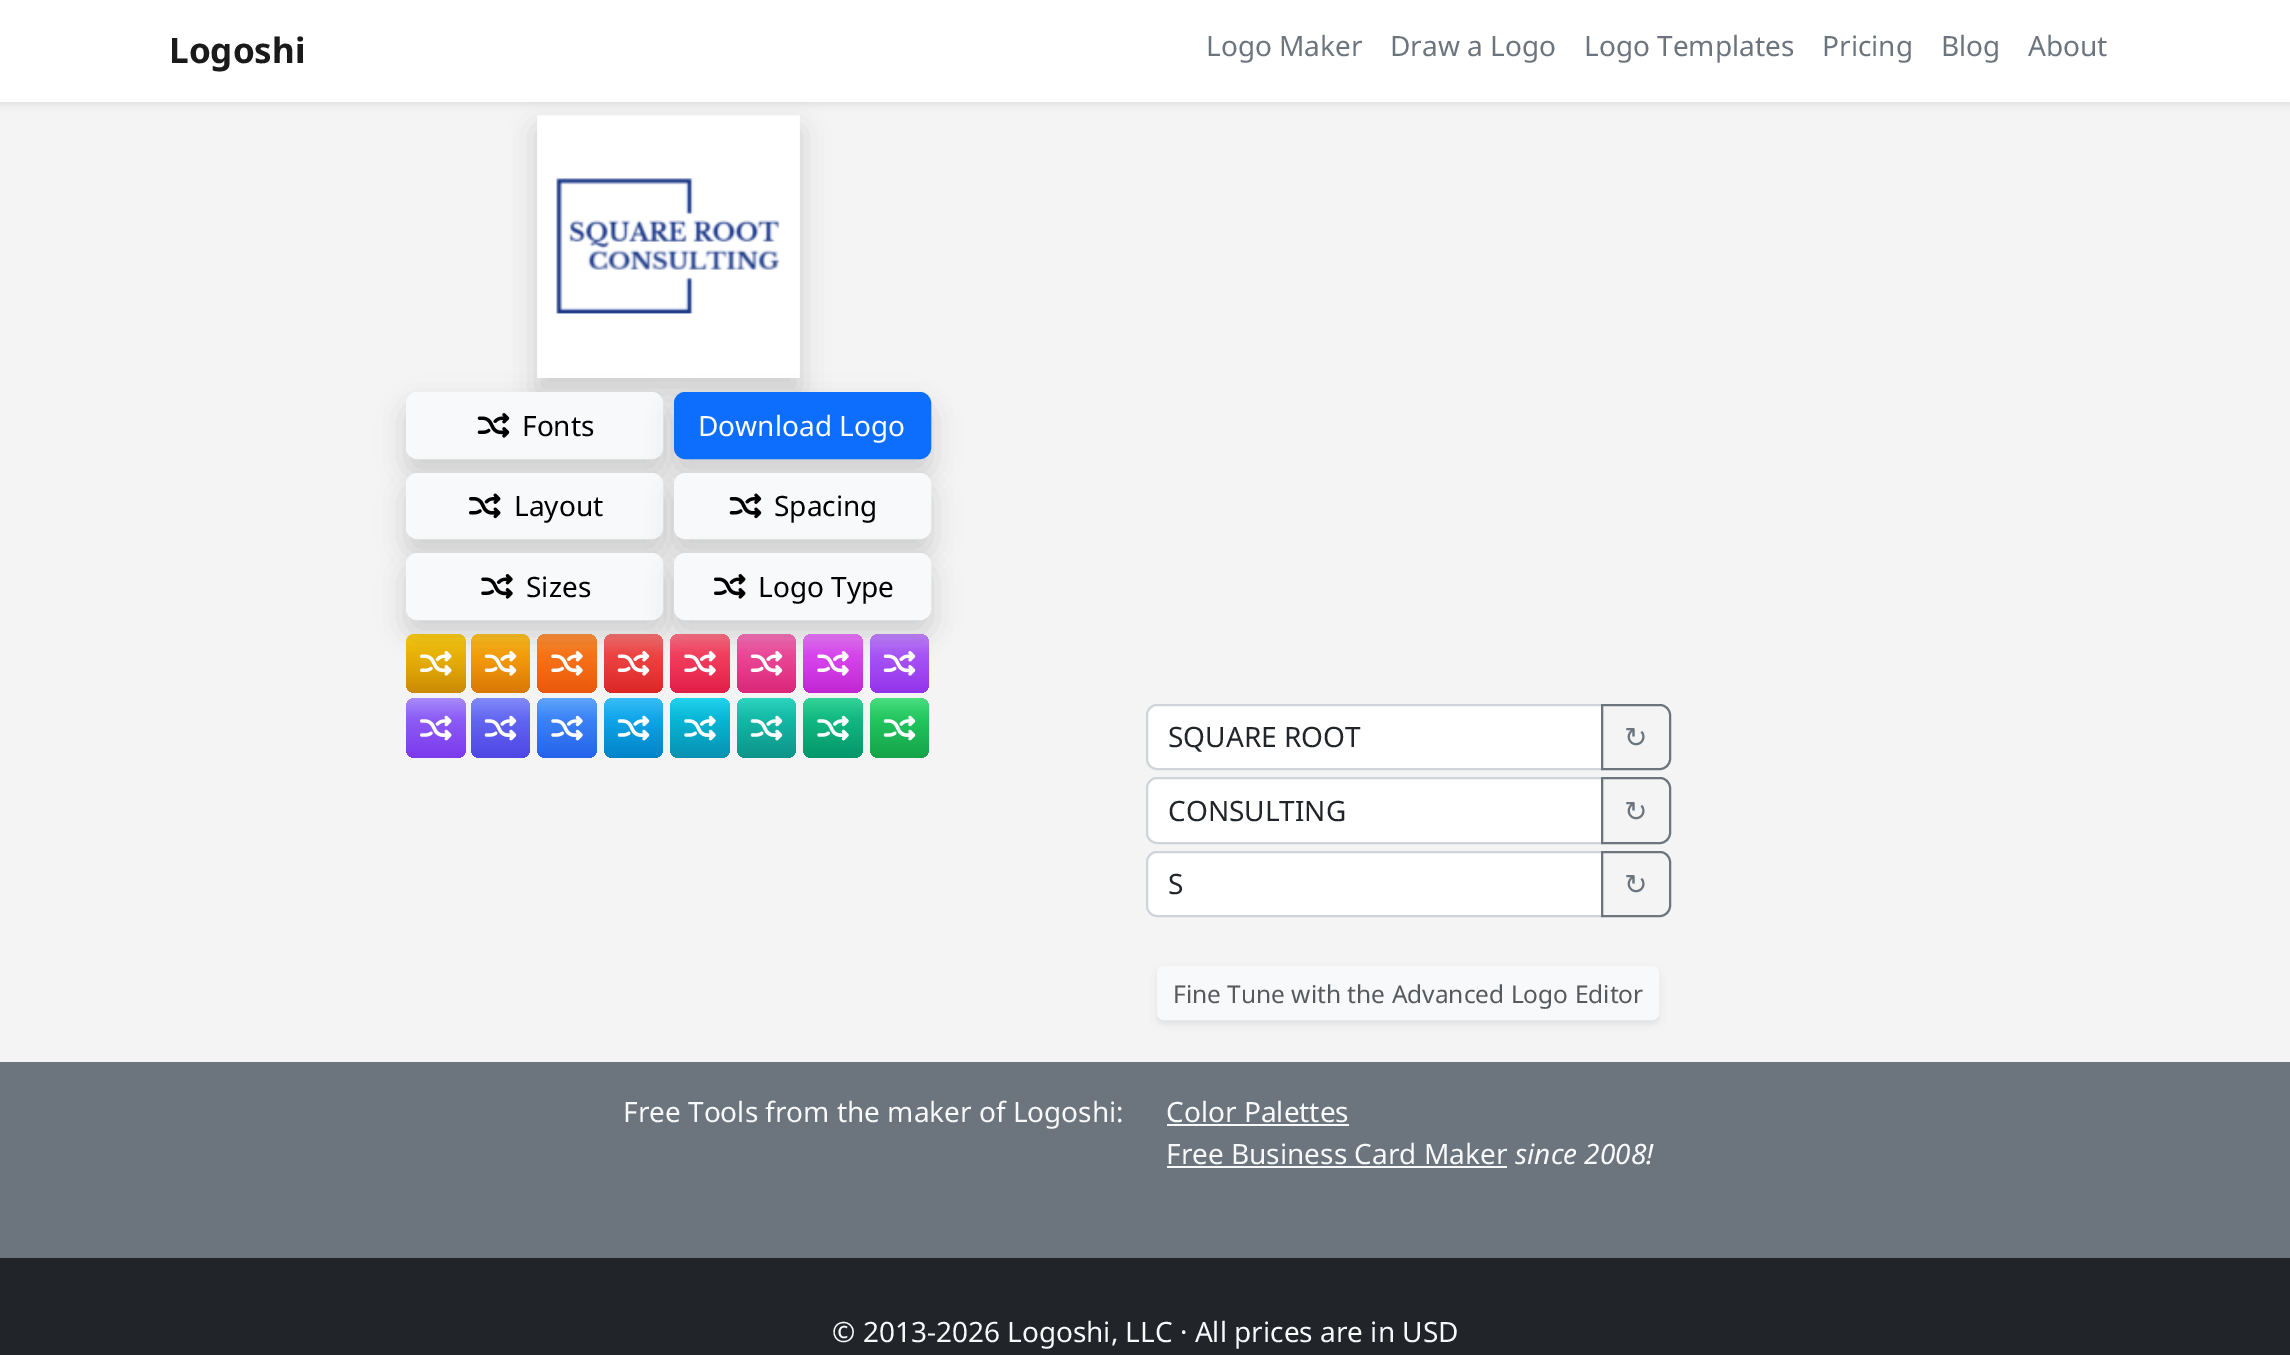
%!PS
<< /PageSize [2290 1355] /PageUsesTransparency true >> setpagedevice
/alpha { dup .setfillconstantalpha .setstrokeconstantalpha } def
/roundrect { 5 dict begin { /r /h /w /y /x } { exch def } forall
  x r add y moveto x w add y 2 copy h add r arct x w add y h add x 1 index r arct
  x y h add x y r arct x y 2 copy exch w add exch r arct closepath end } def
/shadow { 12 dict begin { /a /b /q /h /w /y /x } { exch def } forall gsave /was 0 def
  9 -2 -9 { dup b mul 4 div /e exch def 1 sub .425 mul 2.718 exch exp 1 add a .99 .min exch div /now exch def
    1 1 now sub 1 was sub div sub alpha /was now def
    w h .min e 2 mul add 0 gt { x e sub y e sub w e 2 mul add h e 2 mul add
      q e add b .6 mul add w h .min 2 div e add .min 0 .max roundrect fill } if } for grestore end } def
/picture { 5 dict begin { /h /w /y /x /name } { exch def } forall
  gsave x y translate w h scale
  w h 8 [w 0 0 h 0 0] name (r) file false 3 colorimage grestore end } def
0 .pushpdf14devicefilter
0 1355 translate 1 -1 scale
4 setmiterlimit
0.129 0.145 0.161 setrgbcolor
0 0 2290 1355 rectfill
0.957 setgray
0 102 2290 960 rectfill
0 setgray
537 130 263 262 0 14 0.15 shadow
(img1.rgb) 537 115 263 263 picture
0 4 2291 101 0 3.5 0.07 shadow
1 setgray
0 0 2290 102 rectfill
/NotoSans-Bold [35 0 0 -35 0 0] selectfont
0.102 setgray
169 63 moveto (Logoshi) show
/NotoSans-Regular [28 0 0 -28 0 0] selectfont
0.424 0.459 0.49 setrgbcolor
1206 56 moveto (Logo Maker) show
1390 56 moveto (Draw a Logo) show
1584 56 moveto (Logo Templates) show
1822 56 moveto (Pricing) show
1941 56 moveto (Blog) show
2028 56 moveto (About) show
0 setgray
406 406 257 67 11 14 0.15 shadow
0.973 0.976 0.98 setrgbcolor
407 393 255 65 10 roundrect gsave fill grestore
2 setlinewidth
stroke
(img2.rgb) 477 413 33 25 picture
0 setgray
522 436 moveto (Fonts) show
674 406 257 67 11 14 0.15 shadow
0.051 0.431 0.992 setrgbcolor
675 393 255 65 10 roundrect gsave fill grestore
stroke
1 setgray
698 436 moveto (Download Logo) show
0 setgray
406 487 257 66 11 14 0.15 shadow
0.973 0.976 0.98 setrgbcolor
407 474 255 64 10 roundrect gsave fill grestore
stroke
(img3.rgb) 469 493 32 26 picture
0 setgray
514 516 moveto (Layout) show
674 487 257 66 11 14 0.15 shadow
0.973 0.976 0.98 setrgbcolor
675 474 255 64 10 roundrect gsave fill grestore
stroke
(img4.rgb) 729 493 33 26 picture
0 setgray
774 516 moveto (Spacing) show
gsave 406 634 60 59 9 roundrect clip newpath
<< /ShadingType 2 /ColorSpace /DeviceRGB /Coords [436 634 436 693] /Extend [true true] /Function << /FunctionType 3 /Domain [0 1] /Functions [<< /FunctionType 2 /Domain [0 1] /C0 [0.98 0.8 0.082] /C1 [0.918 0.702 0.031] /N 1 >> << /FunctionType 2 /Domain [0 1] /C0 [0.918 0.702 0.031] /C1 [0.792 0.541 0.016] /N 1 >>] /Bounds [0.35] /Encode [0 1 0 1] >> >> shfill grestore
gsave 471 634 59 59 9 roundrect clip newpath
<< /ShadingType 2 /ColorSpace /DeviceRGB /Coords [501 634 501 693] /Extend [true true] /Function << /FunctionType 3 /Domain [0 1] /Functions [<< /FunctionType 2 /Domain [0 1] /C0 [0.984 0.749 0.141] /C1 [0.961 0.62 0.043] /N 1 >> << /FunctionType 2 /Domain [0 1] /C0 [0.961 0.62 0.043] /C1 [0.851 0.467 0.024] /N 1 >>] /Bounds [0.35] /Encode [0 1 0 1] >> >> shfill grestore
gsave 537 634 60 59 9 roundrect clip newpath
<< /ShadingType 2 /ColorSpace /DeviceRGB /Coords [567 634 567 693] /Extend [true true] /Function << /FunctionType 3 /Domain [0 1] /Functions [<< /FunctionType 2 /Domain [0 1] /C0 [0.984 0.573 0.235] /C1 [0.976 0.451 0.086] /N 1 >> << /FunctionType 2 /Domain [0 1] /C0 [0.976 0.451 0.086] /C1 [0.918 0.345 0.047] /N 1 >>] /Bounds [0.35] /Encode [0 1 0 1] >> >> shfill grestore
gsave 604 634 59 59 9 roundrect clip newpath
<< /ShadingType 2 /ColorSpace /DeviceRGB /Coords [634 634 634 693] /Extend [true true] /Function << /FunctionType 3 /Domain [0 1] /Functions [<< /FunctionType 2 /Domain [0 1] /C0 [0.973 0.443 0.443] /C1 [0.937 0.267 0.267] /N 1 >> << /FunctionType 2 /Domain [0 1] /C0 [0.937 0.267 0.267] /C1 [0.863 0.149 0.149] /N 1 >>] /Bounds [0.35] /Encode [0 1 0 1] >> >> shfill grestore
gsave 670 634 60 59 9 roundrect clip newpath
<< /ShadingType 2 /ColorSpace /DeviceRGB /Coords [700 634 700 693] /Extend [true true] /Function << /FunctionType 3 /Domain [0 1] /Functions [<< /FunctionType 2 /Domain [0 1] /C0 [0.984 0.443 0.522] /C1 [0.957 0.247 0.369] /N 1 >> << /FunctionType 2 /Domain [0 1] /C0 [0.957 0.247 0.369] /C1 [0.882 0.114 0.282] /N 1 >>] /Bounds [0.35] /Encode [0 1 0 1] >> >> shfill grestore
406 567 257 67 11 14 0.15 shadow
0.973 0.976 0.98 setrgbcolor
407 554 255 65 10 roundrect gsave fill grestore
stroke
(img5.rgb) 481 574 32 25 picture
0 setgray
526 597 moveto (Sizes) show
gsave 737 634 59 59 9 roundrect clip newpath
<< /ShadingType 2 /ColorSpace /DeviceRGB /Coords [767 634 767 693] /Extend [true true] /Function << /FunctionType 3 /Domain [0 1] /Functions [<< /FunctionType 2 /Domain [0 1] /C0 [0.957 0.447 0.714] /C1 [0.925 0.282 0.6] /N 1 >> << /FunctionType 2 /Domain [0 1] /C0 [0.925 0.282 0.6] /C1 [0.859 0.153 0.467] /N 1 >>] /Bounds [0.35] /Encode [0 1 0 1] >> >> shfill grestore
gsave 803 634 60 59 9 roundrect clip newpath
<< /ShadingType 2 /ColorSpace /DeviceRGB /Coords [833 634 833 693] /Extend [true true] /Function << /FunctionType 3 /Domain [0 1] /Functions [<< /FunctionType 2 /Domain [0 1] /C0 [0.91 0.475 0.976] /C1 [0.851 0.275 0.937] /N 1 >> << /FunctionType 2 /Domain [0 1] /C0 [0.851 0.275 0.937] /C1 [0.753 0.149 0.827] /N 1 >>] /Bounds [0.35] /Encode [0 1 0 1] >> >> shfill grestore
gsave 870 634 59 59 9 roundrect clip newpath
<< /ShadingType 2 /ColorSpace /DeviceRGB /Coords [900 634 900 693] /Extend [true true] /Function << /FunctionType 3 /Domain [0 1] /Functions [<< /FunctionType 2 /Domain [0 1] /C0 [0.753 0.518 0.988] /C1 [0.659 0.333 0.969] /N 1 >> << /FunctionType 2 /Domain [0 1] /C0 [0.659 0.333 0.969] /C1 [0.576 0.2 0.918] /N 1 >>] /Bounds [0.35] /Encode [0 1 0 1] >> >> shfill grestore
674 567 257 67 11 14 0.15 shadow
0.973 0.976 0.98 setrgbcolor
675 554 255 65 10 roundrect gsave fill grestore
stroke
(img6.rgb) 714 574 32 25 picture
0 setgray
758 597 moveto (Logo Type) show
(img7.rgb) 420 651 32 25 picture
(img8.rgb) 484 651 33 25 picture
(img9.rgb) 551 651 32 25 picture
(img10.rgb) 617 651 33 25 picture
(img11.rgb) 684 651 32 25 picture
(img12.rgb) 750 651 33 25 picture
(img13.rgb) 817 651 32 25 picture
(img14.rgb) 883 651 33 25 picture
gsave 406 698 60 60 9 roundrect clip newpath
<< /ShadingType 2 /ColorSpace /DeviceRGB /Coords [436 698 436 758] /Extend [true true] /Function << /FunctionType 3 /Domain [0 1] /Functions [<< /FunctionType 2 /Domain [0 1] /C0 [0.655 0.545 0.98] /C1 [0.545 0.361 0.965] /N 1 >> << /FunctionType 2 /Domain [0 1] /C0 [0.545 0.361 0.965] /C1 [0.486 0.227 0.929] /N 1 >>] /Bounds [0.35] /Encode [0 1 0 1] >> >> shfill grestore
(img15.rgb) 420 715 32 26 picture
gsave 471 698 59 60 9 roundrect clip newpath
<< /ShadingType 2 /ColorSpace /DeviceRGB /Coords [501 698 501 758] /Extend [true true] /Function << /FunctionType 3 /Domain [0 1] /Functions [<< /FunctionType 2 /Domain [0 1] /C0 [0.506 0.549 0.973] /C1 [0.388 0.4 0.945] /N 1 >> << /FunctionType 2 /Domain [0 1] /C0 [0.388 0.4 0.945] /C1 [0.31 0.275 0.898] /N 1 >>] /Bounds [0.35] /Encode [0 1 0 1] >> >> shfill grestore
(img16.rgb) 484 715 33 26 picture
gsave 537 698 60 60 9 roundrect clip newpath
<< /ShadingType 2 /ColorSpace /DeviceRGB /Coords [567 698 567 758] /Extend [true true] /Function << /FunctionType 3 /Domain [0 1] /Functions [<< /FunctionType 2 /Domain [0 1] /C0 [0.376 0.647 0.98] /C1 [0.231 0.51 0.965] /N 1 >> << /FunctionType 2 /Domain [0 1] /C0 [0.231 0.51 0.965] /C1 [0.145 0.388 0.922] /N 1 >>] /Bounds [0.35] /Encode [0 1 0 1] >> >> shfill grestore
(img17.rgb) 551 715 32 26 picture
gsave 604 698 59 60 9 roundrect clip newpath
<< /ShadingType 2 /ColorSpace /DeviceRGB /Coords [634 698 634 758] /Extend [true true] /Function << /FunctionType 3 /Domain [0 1] /Functions [<< /FunctionType 2 /Domain [0 1] /C0 [0.22 0.741 0.973] /C1 [0.055 0.647 0.914] /N 1 >> << /FunctionType 2 /Domain [0 1] /C0 [0.055 0.647 0.914] /C1 [0.008 0.518 0.78] /N 1 >>] /Bounds [0.35] /Encode [0 1 0 1] >> >> shfill grestore
(img18.rgb) 617 715 33 26 picture
gsave 670 698 60 60 9 roundrect clip newpath
<< /ShadingType 2 /ColorSpace /DeviceRGB /Coords [700 698 700 758] /Extend [true true] /Function << /FunctionType 3 /Domain [0 1] /Functions [<< /FunctionType 2 /Domain [0 1] /C0 [0.133 0.827 0.933] /C1 [0.024 0.714 0.831] /N 1 >> << /FunctionType 2 /Domain [0 1] /C0 [0.024 0.714 0.831] /C1 [0.031 0.569 0.698] /N 1 >>] /Bounds [0.35] /Encode [0 1 0 1] >> >> shfill grestore
(img19.rgb) 684 715 32 26 picture
gsave 737 698 59 60 9 roundrect clip newpath
<< /ShadingType 2 /ColorSpace /DeviceRGB /Coords [767 698 767 758] /Extend [true true] /Function << /FunctionType 3 /Domain [0 1] /Functions [<< /FunctionType 2 /Domain [0 1] /C0 [0.176 0.831 0.749] /C1 [0.078 0.722 0.651] /N 1 >> << /FunctionType 2 /Domain [0 1] /C0 [0.078 0.722 0.651] /C1 [0.051 0.58 0.533] /N 1 >>] /Bounds [0.35] /Encode [0 1 0 1] >> >> shfill grestore
(img20.rgb) 750 715 33 26 picture
gsave 803 698 60 60 9 roundrect clip newpath
<< /ShadingType 2 /ColorSpace /DeviceRGB /Coords [833 698 833 758] /Extend [true true] /Function << /FunctionType 3 /Domain [0 1] /Functions [<< /FunctionType 2 /Domain [0 1] /C0 [0.204 0.827 0.6] /C1 [0.063 0.725 0.506] /N 1 >> << /FunctionType 2 /Domain [0 1] /C0 [0.063 0.725 0.506] /C1 [0.02 0.588 0.412] /N 1 >>] /Bounds [0.35] /Encode [0 1 0 1] >> >> shfill grestore
(img21.rgb) 817 715 32 26 picture
gsave 870 698 59 60 9 roundrect clip newpath
<< /ShadingType 2 /ColorSpace /DeviceRGB /Coords [900 698 900 758] /Extend [true true] /Function << /FunctionType 3 /Domain [0 1] /Functions [<< /FunctionType 2 /Domain [0 1] /C0 [0.29 0.871 0.502] /C1 [0.133 0.773 0.369] /N 1 >> << /FunctionType 2 /Domain [0 1] /C0 [0.133 0.773 0.369] /C1 [0.086 0.639 0.29] /N 1 >>] /Bounds [0.35] /Encode [0 1 0 1] >> >> shfill grestore
(img22.rgb) 883 715 33 26 picture
1 setgray
newpath 1157 705 moveto 1602 705 lineto 1602 769 lineto 1157 769 lineto 1151.5 769 1147 764.5 1147 759 curveto 1147 715 lineto 1147 709.5 1151.5 705 1157 705 curveto closepath gsave fill grestore
0.808 0.831 0.855 setrgbcolor
stroke
0.129 0.145 0.161 setrgbcolor
1168 747 moveto (SQUARE ROOT) show
0.424 0.459 0.49 setrgbcolor
newpath 1602 705 moveto 1660 705 lineto 1665.5 705 1670 709.5 1670 715 curveto 1670 759 lineto 1670 764.5 1665.5 769 1660 769 curveto 1602 769 lineto closepath stroke
/DejaVuSans-Regular [28 0 0 -28 0 0] selectfont
1624 747 moveto (↻) show
1 setgray
newpath 1157 778 moveto 1602 778 lineto 1602 843 lineto 1157 843 lineto 1151.5 843 1147 838.5 1147 833 curveto 1147 788 lineto 1147 782.5 1151.5 778 1157 778 curveto closepath gsave fill grestore
0.808 0.831 0.855 setrgbcolor
stroke
/NotoSans-Regular [28 0 0 -28 0 0] selectfont
0.129 0.145 0.161 setrgbcolor
1168 821 moveto (CONSULTING) show
0.424 0.459 0.49 setrgbcolor
newpath 1602 778 moveto 1660 778 lineto 1665.5 778 1670 782.5 1670 788 curveto 1670 833 lineto 1670 838.5 1665.5 843 1660 843 curveto 1602 843 lineto closepath stroke
/DejaVuSans-Regular [28 0 0 -28 0 0] selectfont
1624 821 moveto (↻) show
1 setgray
newpath 1157 852 moveto 1602 852 lineto 1602 916 lineto 1157 916 lineto 1151.5 916 1147 911.5 1147 906 curveto 1147 862 lineto 1147 856.5 1151.5 852 1157 852 curveto closepath gsave fill grestore
0.808 0.831 0.855 setrgbcolor
stroke
/NotoSans-Regular [28 0 0 -28 0 0] selectfont
0.129 0.145 0.161 setrgbcolor
1168 894 moveto (S) show
0.424 0.459 0.49 setrgbcolor
newpath 1602 852 moveto 1660 852 lineto 1665.5 852 1670 856.5 1670 862 curveto 1670 906 lineto 1670 911.5 1665.5 916 1660 916 curveto 1602 916 lineto closepath stroke
/DejaVuSans-Regular [28 0 0 -28 0 0] selectfont
1624 894 moveto (↻) show
0 setgray
1157 970 502 54 7 3.5 0.07 shadow
0.973 0.976 0.98 setrgbcolor
1158 967 500 52 6 roundrect gsave fill grestore
stroke
/NotoSans-Regular [24.5 0 0 -24.5 0 0] selectfont
0.341 0.353 0.365 setrgbcolor
1173 1003 moveto (Fine Tune with the Advanced Logo Editor) show
0.424 0.459 0.49 setrgbcolor
0 1062 2290 196 rectfill
/NotoSans-Regular [28 0 0 -28 0 0] selectfont
0.973 0.976 0.98 setrgbcolor
623 1122 moveto (Free Tools from the maker of Logoshi:) show
1166 1122 moveto (Color Palettes) show
1167 1124 182 2 rectfill
1166 1164 moveto (Free Business Card Maker) show
1167 1166 340 2 rectfill
/NotoSans-Italic [28 0 0 -28 0 0] selectfont
1515 1164 moveto (since 2008!) show
/NotoSans-Regular [28 0 0 -28 0 0] selectfont
832 1342 moveto (© 2013-2026 Logoshi, LLC · All prices are in USD) show
.poppdf14devicefilter showpage
